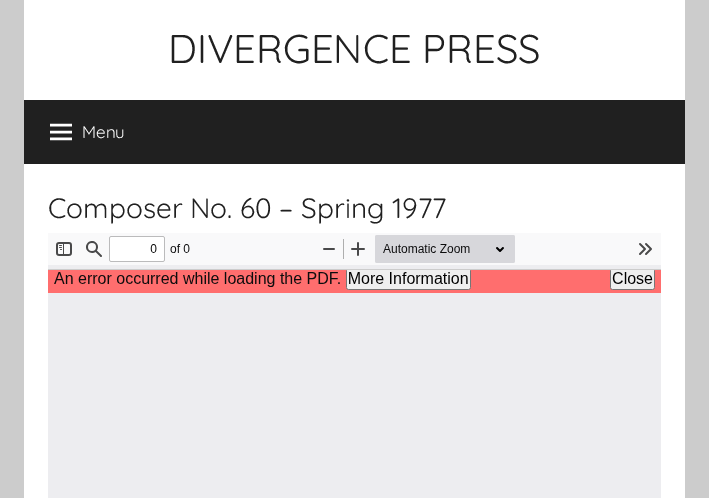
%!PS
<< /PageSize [709 498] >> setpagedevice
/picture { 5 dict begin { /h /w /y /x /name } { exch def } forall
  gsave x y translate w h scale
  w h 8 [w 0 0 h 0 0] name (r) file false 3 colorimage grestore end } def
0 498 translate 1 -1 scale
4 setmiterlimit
0.8 setgray
0 0 709 498 rectfill
1 setgray
24 0 661 100 rectfill
/Quicksand-Regular [40 0 0 -40 0 0] selectfont
0.125 setgray
168 63 moveto (DIVERGENCE PRESS) show
24 100 661 64 rectfill
(img1.rgb) 50 123 22 18 picture
/Quicksand-Regular [17 0 0 -17 0 0] selectfont
1 setgray
82 138 moveto (Menu) show
24 164 661 334 rectfill
/Quicksand-Regular [28 0 0 -28 0 0] selectfont
0.125 setgray
48 218 moveto (Composer No. 60 – Spring 1977) show
(img2.rgb) 48 233 613 265 picture
showpage
